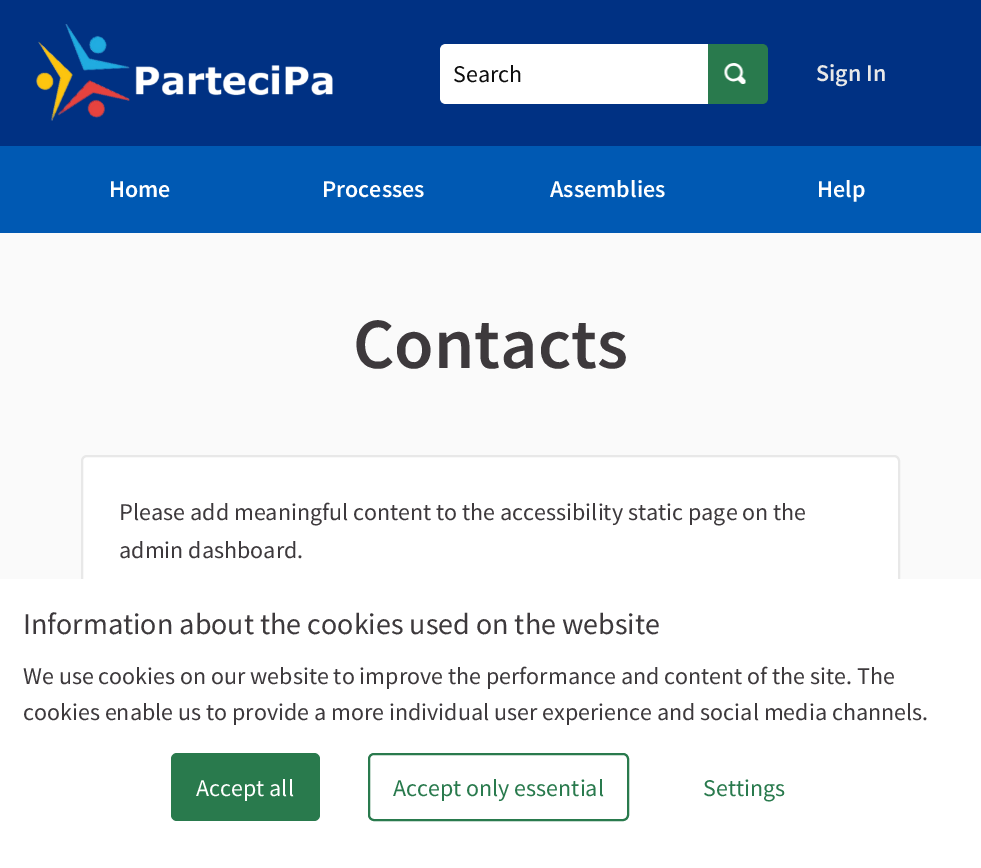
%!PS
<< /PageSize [981 868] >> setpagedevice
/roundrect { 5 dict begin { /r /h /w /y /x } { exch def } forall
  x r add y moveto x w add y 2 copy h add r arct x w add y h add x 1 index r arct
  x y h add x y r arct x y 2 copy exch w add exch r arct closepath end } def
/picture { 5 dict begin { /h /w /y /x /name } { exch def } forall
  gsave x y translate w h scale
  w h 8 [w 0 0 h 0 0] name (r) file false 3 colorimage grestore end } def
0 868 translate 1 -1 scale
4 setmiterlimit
0.98 setgray
0 0 981 868 rectfill
0 0.192 0.514 setrgbcolor
0 0 981 146 rectfill
(img1.rgb) 36 24 297 97 picture
1 setgray
newpath 446 44 moveto 708 44 lineto 708 104 lineto 446 104 lineto 442.5 104 440 101.5 440 98 curveto 440 50 lineto 440 46.5 442.5 44 446 44 curveto closepath fill
/SourceSansPro-Regular [24 0 0 -24 0 0] selectfont
0.051 setgray
453 82 moveto (Search) show
0.161 0.478 0.302 setrgbcolor
newpath 708 44 moveto 762 44 lineto 765.5 44 768 46.5 768 50 curveto 768 98 lineto 768 101.5 765.5 104 762 104 curveto 708 104 lineto closepath fill
(img2.rgb) 724 63 22 21 picture
/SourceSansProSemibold-SemiBold [24 0 0 -24 0 0] selectfont
0.91 setgray
816 81 moveto (Sign In) show
0 0.349 0.702 setrgbcolor
0 146 981 87 rectfill
1 setgray
109 197 moveto (Home) show
322 197 moveto (Processes) show
550 197 moveto (Assemblies) show
817 197 moveto (Help) show
/SourceSansProSemibold-SemiBold [72 0 0 -72 0 0] selectfont
0.239 0.224 0.235 setrgbcolor
353 368 moveto (Contacts) show
1 setgray
82 456 817 175 5 roundrect gsave fill grestore
0.91 setgray
2 setlinewidth
stroke
/SourceSansPro-Regular [24 0 0 -24 0 0] selectfont
0.239 0.224 0.235 setrgbcolor
119 520 moveto (Please add meaningful content to the accessibility static page on the) show
119 558 moveto (admin dashboard.) show
1 setgray
0 579 981 289 rectfill
/SourceSansPro-Regular [30 0 0 -30 0 0] selectfont
0.239 0.224 0.235 setrgbcolor
23 634 moveto (Information about the cookies used on the website) show
/SourceSansPro-Regular [24 0 0 -24 0 0] selectfont
23 684 moveto (We use cookies on our website to improve the performance and content of the site. The) show
23 720 moveto (cookies enable us to provide a more individual user experience and social media channels.) show
0.161 0.478 0.302 setrgbcolor
171 753 149 68 6 roundrect fill
1 setgray
196 796 moveto (Accept all) show
0.161 0.478 0.302 setrgbcolor
369 754 259 66 5 roundrect stroke
393 796 moveto (Accept only essential) show
703 796 moveto (Settings) show
showpage
